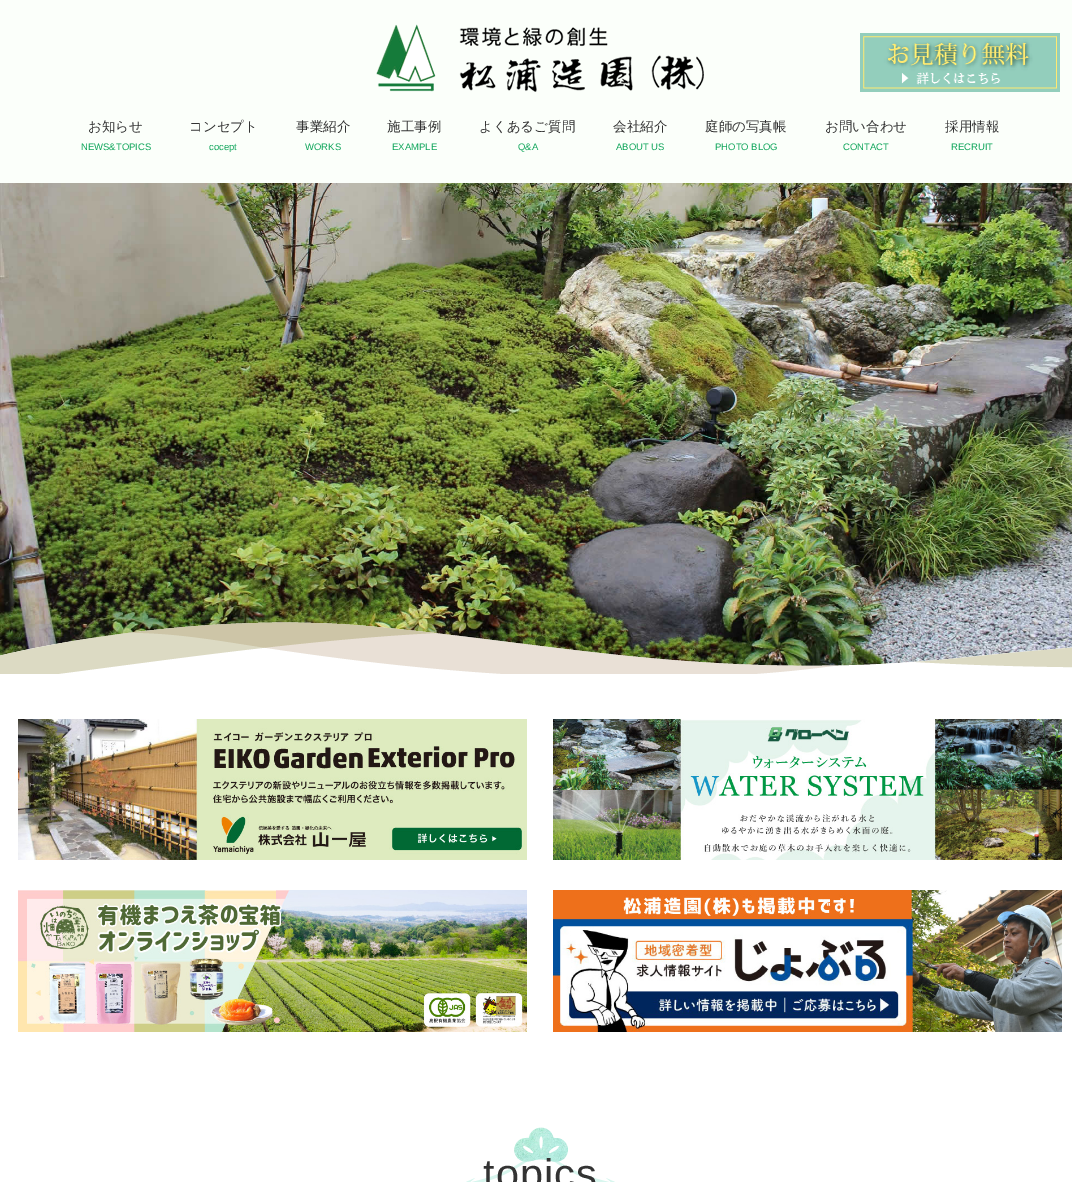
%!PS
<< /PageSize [1072 1182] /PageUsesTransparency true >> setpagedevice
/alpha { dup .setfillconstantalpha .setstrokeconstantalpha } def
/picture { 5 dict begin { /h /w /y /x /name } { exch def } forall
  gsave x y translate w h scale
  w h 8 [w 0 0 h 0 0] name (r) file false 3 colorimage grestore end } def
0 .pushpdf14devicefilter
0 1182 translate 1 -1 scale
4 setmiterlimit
1 setgray
0 0 1072 1182 rectfill
0.984 1 0.98 setrgbcolor
0 0 1072 183 rectfill
(img1.rgb) 376 24 328 68 picture
(img2.rgb) 860 33 200 59 picture
/WenQuanYiZenHei-Medium [13.5 0 0 -13.5 0 0] selectfont
0.2 setgray
88 131 moveto (お知らせ) show
/LiberationSans-Regular [9.5 0 0 -9.5 0 0] selectfont
0.059 0.647 0.353 setrgbcolor
81 150 moveto (NEWS&TOPICS) show
/WenQuanYiZenHei-Medium [13.5 0 0 -13.5 0 0] selectfont
0.2 setgray
189 131 moveto (コンセプト) show
/LiberationSans-Regular [9.5 0 0 -9.5 0 0] selectfont
0.059 0.647 0.353 setrgbcolor
209 150 moveto (cocept) show
/WenQuanYiZenHei-Medium [13.5 0 0 -13.5 0 0] selectfont
0.2 setgray
296 131 moveto (事業紹介) show
/LiberationSans-Regular [9.5 0 0 -9.5 0 0] selectfont
0.059 0.647 0.353 setrgbcolor
305 150 moveto (WORKS) show
/WenQuanYiZenHei-Medium [13.5 0 0 -13.5 0 0] selectfont
0.2 setgray
387 131 moveto (施工事例) show
/LiberationSans-Regular [9.5 0 0 -9.5 0 0] selectfont
0.059 0.647 0.353 setrgbcolor
392 150 moveto (EXAMPLE) show
/WenQuanYiZenHei-Medium [13.5 0 0 -13.5 0 0] selectfont
0.2 setgray
479 131 moveto (よくあるご質問) show
/LiberationSans-Regular [9.5 0 0 -9.5 0 0] selectfont
0.059 0.647 0.353 setrgbcolor
518 150 moveto (Q&A) show
/WenQuanYiZenHei-Medium [13.5 0 0 -13.5 0 0] selectfont
0.2 setgray
613 131 moveto (会社紹介) show
/LiberationSans-Regular [9.5 0 0 -9.5 0 0] selectfont
0.059 0.647 0.353 setrgbcolor
616 150 moveto (ABOUT US) show
/WenQuanYiZenHei-Medium [13.5 0 0 -13.5 0 0] selectfont
0.2 setgray
705 131 moveto (庭師の写真帳) show
/LiberationSans-Regular [9.5 0 0 -9.5 0 0] selectfont
0.059 0.647 0.353 setrgbcolor
715 150 moveto (PHOTO BLOG) show
/WenQuanYiZenHei-Medium [13.5 0 0 -13.5 0 0] selectfont
0.2 setgray
825 131 moveto (お問い合わせ) show
/LiberationSans-Regular [9.5 0 0 -9.5 0 0] selectfont
0.059 0.647 0.353 setrgbcolor
843 150 moveto (CONTACT) show
/WenQuanYiZenHei-Medium [13.5 0 0 -13.5 0 0] selectfont
0.2 setgray
945 131 moveto (採用情報) show
/LiberationSans-Regular [9.5 0 0 -9.5 0 0] selectfont
0.059 0.647 0.353 setrgbcolor
951 150 moveto (RECRUIT) show
(img3.rgb) 0 183 1072 483 picture
0.9 alpha
0 setgray
newpath 471.5 641.5 5.5 0 360 arc closepath fill
0.5 alpha
newpath 494.5 641.5 5.5 0 360 arc closepath fill
newpath 517.5 641.5 5.5 0 360 arc closepath fill
newpath 540.5 641.5 5.5 0 360 arc closepath fill
newpath 563.5 641.5 5.5 0 360 arc closepath fill
newpath 586.5 641.5 5.5 0 360 arc closepath fill
newpath 609.5 641.5 5.5 0 360 arc closepath fill
1 alpha
(img4.rgb) 0 622 1072 52 picture
(img5.rgb) 18 719 509 141 picture
(img6.rgb) 553 719 509 141 picture
(img7.rgb) 18 890 509 142 picture
(img8.rgb) 553 890 509 142 picture
(img9.rgb) 466 1127 149 55 picture
/LiberationSans-Regular [41.5 0 0 -41.5 0 0] selectfont
0.2 setgray
483 1188 moveto 1 0 (topics) ashow
.poppdf14devicefilter showpage
